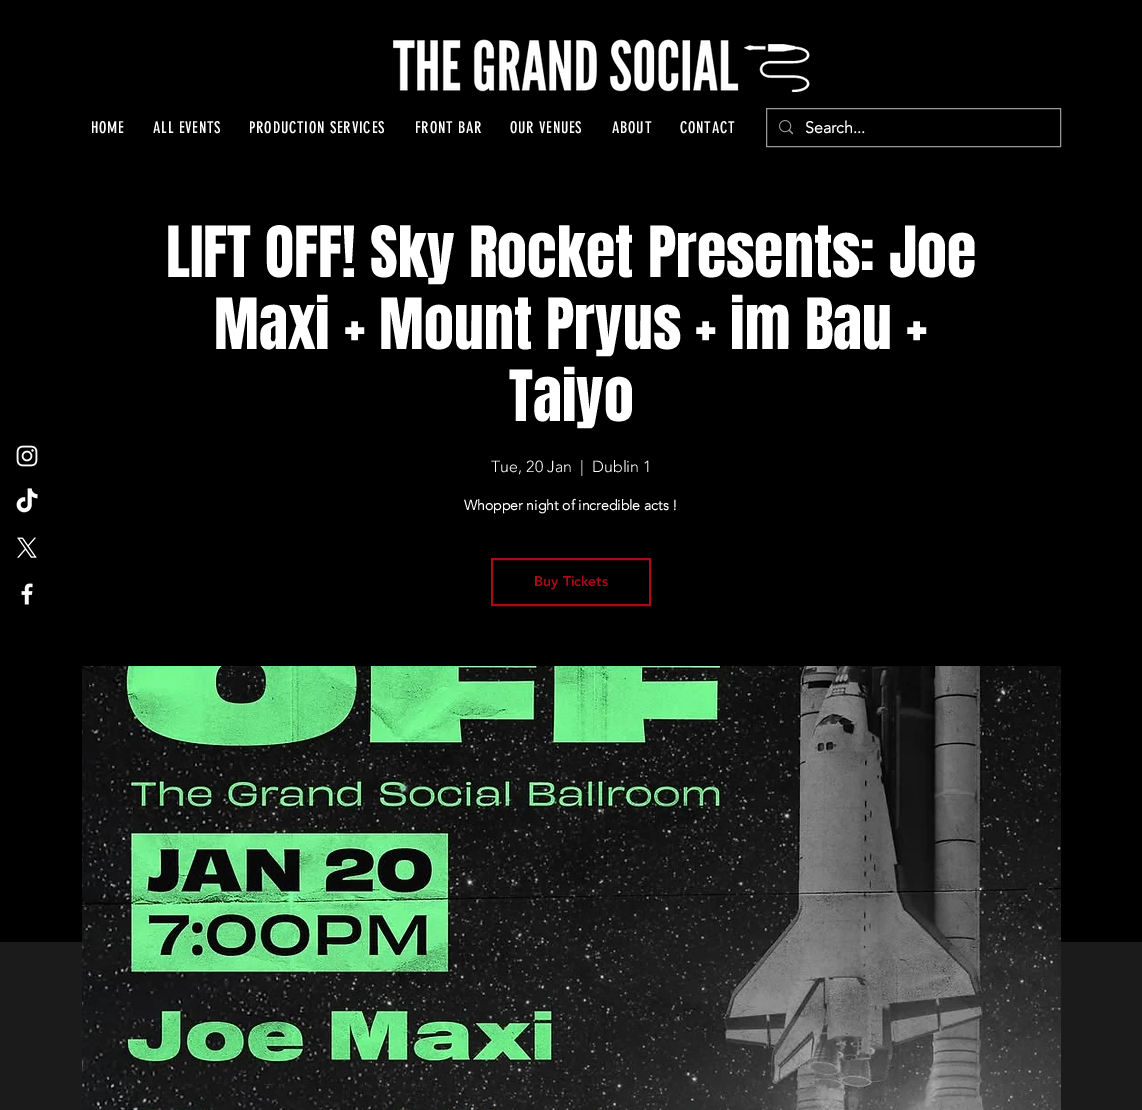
%!PS
<< /PageSize [1142 1110] >> setpagedevice
/picture { 5 dict begin { /h /w /y /x /name } { exch def } forall
  gsave x y translate w h scale
  w h 8 [w 0 0 h 0 0] name (r) file false 3 colorimage grestore end } def
0 1110 translate 1 -1 scale
4 setmiterlimit
0 setgray
0 0 1142 1110 rectfill
(img1.rgb) 393 39 417 54 picture
/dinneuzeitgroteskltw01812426-Regular [16 0 0 -16 0 0] selectfont
1 setgray
91 133 moveto 0.75 0 (HOME) ashow
153 133 moveto 0.75 0 (ALL EVENTS) ashow
249 133 moveto 0.75 0 (PRODUCTION SERVICES) ashow
415 133 moveto 0.75 0 (FRONT BAR) ashow
510 133 moveto 0.75 0 (OUR VENUES) ashow
612 133 moveto 0.75 0 (ABOUT) ashow
680 133 moveto 0.75 0 (CONTACT) ashow
0.6 setgray
766.5 108.5 294 38 rectstroke
(img2.rgb) 779 120 14 15 picture
/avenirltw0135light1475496-Bold [16 0 0 -16 0 0] selectfont
1 setgray
805 133 moveto (Search...) show
(img3.rgb) 16 445 22 22 picture
(img4.rgb) 16 488 22 25 picture
(img5.rgb) 17 537 20 21 picture
(img6.rgb) 21 583 12 22 picture
/Anton-Regular [60 0 0 -60 0 0] selectfont
166 277 moveto (LIFT OFF! Sky Rocket Presents: Joe) show
214 349 moveto (Maxi + Mount Pryus + im Bau +) show
509 421 moveto (Taiyo) show
/avenirltw0135light1475496-Light [16 0 0 -16 0 0] selectfont
491 472 moveto (Tue, 20 Jan) show
580 472 moveto (|) show
592 472 moveto (Dublin 1) show
/avenirltw0135light1475496-Bold [14 0 0 -14 0 0] selectfont
464 510 moveto (Whopper night of incredible acts !) show
0.675 0.039 0.09 setrgbcolor
2 setlinewidth
492 559 158 46 rectstroke
/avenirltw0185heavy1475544-Black [14 0 0 -14 0 0] selectfont
534 586 moveto (Buy Tickets) show
0.106 setgray
0 942 1142 168 rectfill
(img7.rgb) 82 666 979 444 picture
showpage
